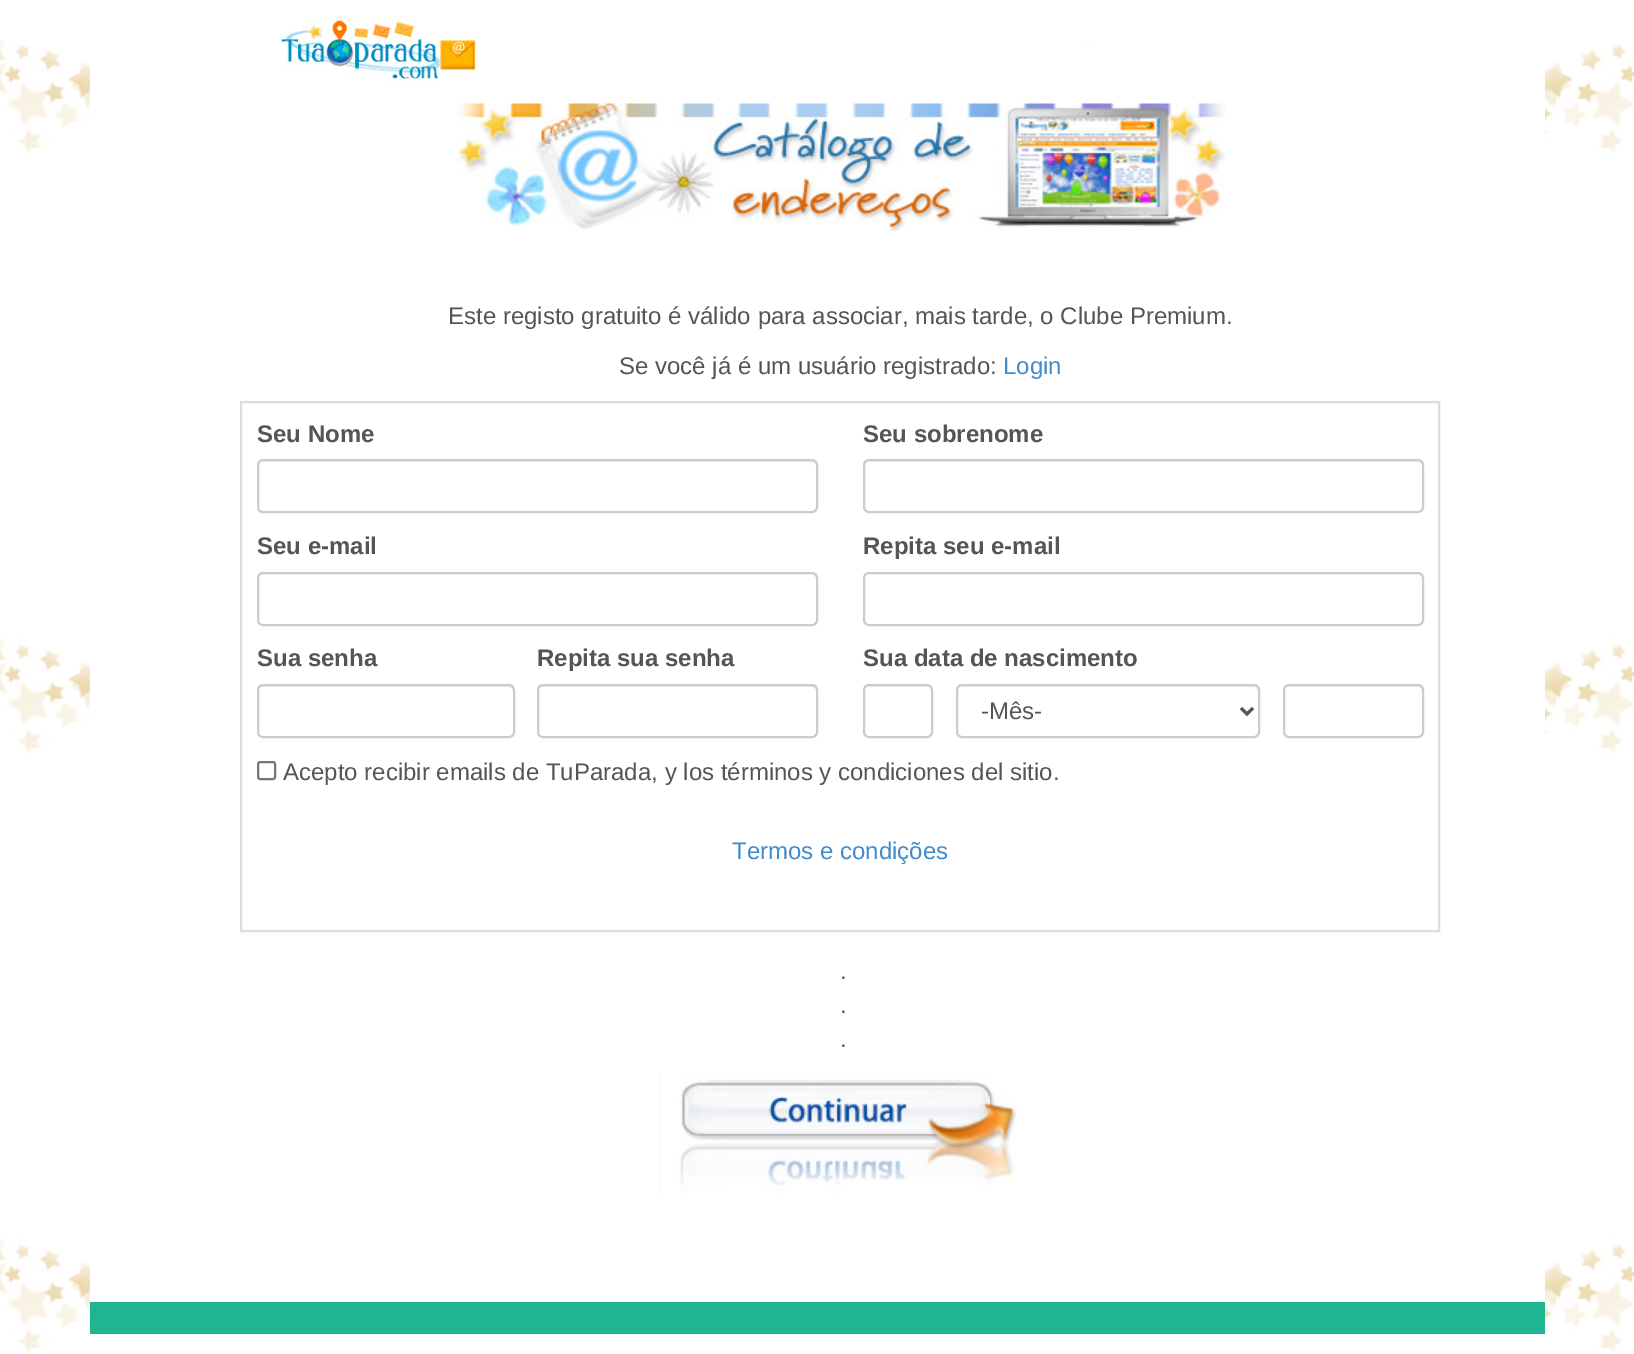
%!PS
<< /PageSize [1634 1354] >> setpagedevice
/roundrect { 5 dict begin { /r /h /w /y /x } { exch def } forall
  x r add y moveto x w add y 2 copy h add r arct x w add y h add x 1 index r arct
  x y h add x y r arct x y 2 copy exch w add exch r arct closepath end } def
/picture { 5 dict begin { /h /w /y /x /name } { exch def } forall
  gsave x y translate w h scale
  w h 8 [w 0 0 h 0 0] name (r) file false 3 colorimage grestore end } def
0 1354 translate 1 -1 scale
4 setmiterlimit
1 setgray
0 0 1634 1354 rectfill
(img1.rgb) 0 40 1634 1314 picture
90 60 1455 1294 rectfill
(img2.rgb) 280 15 196 68 picture
(img3.rgb) 456 103 769 128 picture
/LiberationSans-Regular [24 0 0 -24 0 0] selectfont
0.333 setgray
448 324 moveto (Este registo gratuito é válido para associar, mais tarde, o Clube Premium.) show
619 374 moveto (Se você já é um usuário registrado:) show
0.259 0.545 0.792 setrgbcolor
1003 374 moveto (Login) show
0.867 setgray
2 setlinewidth
241 402 1198 529 rectstroke
/LiberationSans-Bold [24 0 0 -24 0 0] selectfont
0.333 setgray
257 442 moveto (Seu Nome) show
0.925 setgray
newpath 262 462 moveto 812 462 lineto 814 462 816 464 816 466 curveto 816 463 814 461 811 461 curveto 263 461 lineto 260 461 258 463 258 466 curveto 258 464 260 462 262 462 curveto closepath fill
0.8 setgray
258 460 559 52 5 roundrect stroke
0.333 setgray
863 442 moveto (Seu sobrenome) show
0.925 setgray
newpath 868 462 moveto 1418 462 lineto 1420 462 1422 464 1422 466 curveto 1422 463 1420 461 1417 461 curveto 869 461 lineto 866 461 864 463 864 466 curveto 864 464 866 462 868 462 curveto closepath fill
0.8 setgray
864 460 559 52 5 roundrect stroke
0.333 setgray
257 554 moveto (Seu e-mail) show
0.925 setgray
newpath 262 574 moveto 812 574 lineto 814 574 816 577 816 579 curveto 816 576 814 573 811 573 curveto 263 573 lineto 260 573 258 576 258 579 curveto 258 577 260 574 262 574 curveto closepath fill
0.8 setgray
258 573 559 52 5 roundrect stroke
0.333 setgray
863 554 moveto (Repita seu e-mail) show
0.925 setgray
newpath 868 574 moveto 1418 574 lineto 1420 574 1422 577 1422 579 curveto 1422 576 1420 573 1417 573 curveto 869 573 lineto 866 573 864 576 864 579 curveto 864 577 866 574 868 574 curveto closepath fill
0.8 setgray
864 573 559 52 5 roundrect stroke
0.333 setgray
257 666 moveto (Sua senha) show
0.925 setgray
newpath 262 687 moveto 508 687 lineto 511 687 513 689 513 692 curveto 513 691 lineto 513 688 511 686 508 686 curveto 263 686 lineto 260 686 258 688 258 691 curveto 258 692 lineto 258 689 260 687 262 687 curveto closepath fill
0.8 setgray
258 685 256 52 5 roundrect stroke
0.333 setgray
537 666 moveto (Repita sua senha) show
0.925 setgray
newpath 543 687 moveto 812 687 lineto 815 688 lineto 816 692 lineto 816 689 814 686 811 686 curveto 543 686 lineto 541 687 lineto 540 688 lineto closepath fill
0.8 setgray
538 685 279 52 5 roundrect stroke
0.333 setgray
863 666 moveto (Sua data de nascimento) show
0.925 setgray
newpath 868 687 moveto 927 687 lineto 929 687 932 689 932 692 curveto 932 684 923 686 917 686 curveto 879 686 lineto 873 686 864 684 864 692 curveto 864 689 866 687 868 687 curveto closepath fill
0.8 setgray
864 685 68 52 5 roundrect stroke
0.925 setgray
newpath 962 687 moveto 1254 687 lineto 1256 687 1258 689 1258 692 curveto 1258 735 lineto 1259 734 1259 733 1259 732 curveto 1259 691 lineto 1259 688 1257 686 1254 686 curveto 962 686 lineto 959 686 957 688 957 691 curveto 957 692 lineto 957 689 959 687 962 687 curveto closepath fill
0.8 setgray
957 685 302 52 5 roundrect stroke
0.333 setgray
3 setlinewidth
newpath 1241 708 moveto 1247 714 lineto 1253 708 lineto stroke
/LiberationSans-Regular [24 0 0 -24 0 0] selectfont
981 719 moveto (-Mês-) show
0.925 setgray
newpath 1288 687 moveto 1418 687 lineto 1420 687 1422 689 1422 692 curveto 1422 691 lineto 1422 688 1420 686 1417 686 curveto 1289 686 lineto 1286 686 1284 688 1284 691 curveto 1284 692 lineto 1284 689 1286 687 1288 687 curveto closepath fill
0.8 setgray
2 setlinewidth
1284 685 139 52 5 roundrect stroke
0.463 setgray
258 762 17 17 2 roundrect stroke
0.333 setgray
283 780 moveto (Acepto recibir emails de TuParada, y los términos y condiciones del sitio.) show
0.259 0.545 0.792 setrgbcolor
732 859 moveto (Termos e condições) show
0.333 setgray
840 979 moveto (.) show
840 1013 moveto (.) show
840 1047 moveto (.) show
(img4.rgb) 657 1074 360 121 picture
0.122 0.71 0.573 setrgbcolor
90 1302 1455 32 rectfill
showpage
